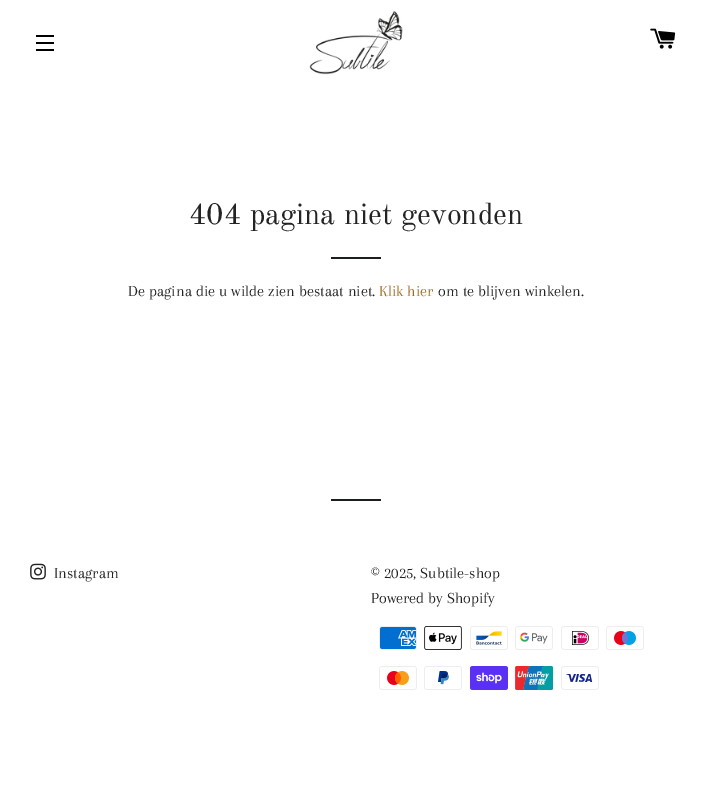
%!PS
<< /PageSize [712 786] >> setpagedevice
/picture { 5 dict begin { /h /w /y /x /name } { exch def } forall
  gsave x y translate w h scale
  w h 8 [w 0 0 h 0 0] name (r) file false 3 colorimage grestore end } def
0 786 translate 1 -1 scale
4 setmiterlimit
1 setgray
0 0 712 786 rectfill
0 setgray
36 35 18 2 rectfill
36 42 18 2 rectfill
36 49 18 2 rectfill
(img1.rgb) 309 11 94 64 picture
(img2.rgb) 650 28 26 21 picture
/OldStandardTT-Regular [30 0 0 -30 0 0] selectfont
0.133 0.137 0.137 setrgbcolor
189 224 moveto (404 pagina niet gevonden) show
0.11 0.114 0.114 setrgbcolor
331 257 50 2 rectfill
/Arapey-Regular [16 0 0 -16 0 0] selectfont
0.133 0.137 0.137 setrgbcolor
128 296 moveto (De pagina die u wilde zien bestaat niet.) show
0.635 0.42 0.145 setrgbcolor
379 296 moveto (Klik hier) show
0.133 0.137 0.137 setrgbcolor
438 296 moveto (om te blijven winkelen.) show
0.11 0.114 0.114 setrgbcolor
331 499 50 2 rectfill
(img3.rgb) 30 563 16 17 picture
0.133 0.137 0.137 setrgbcolor
54 578 moveto (Instagram) show
371 578 moveto (© 2025, Subtile-shop) show
371 603 moveto (Powered by Shopify) show
(img4.rgb) 379 626 38 24 picture
(img5.rgb) 424 626 38 24 picture
(img6.rgb) 470 626 38 24 picture
(img7.rgb) 515 626 38 24 picture
(img8.rgb) 561 626 38 24 picture
(img9.rgb) 606 626 38 24 picture
(img10.rgb) 379 666 38 24 picture
(img11.rgb) 424 666 38 24 picture
(img12.rgb) 470 666 38 24 picture
(img13.rgb) 515 666 38 24 picture
(img14.rgb) 561 666 38 24 picture
showpage
